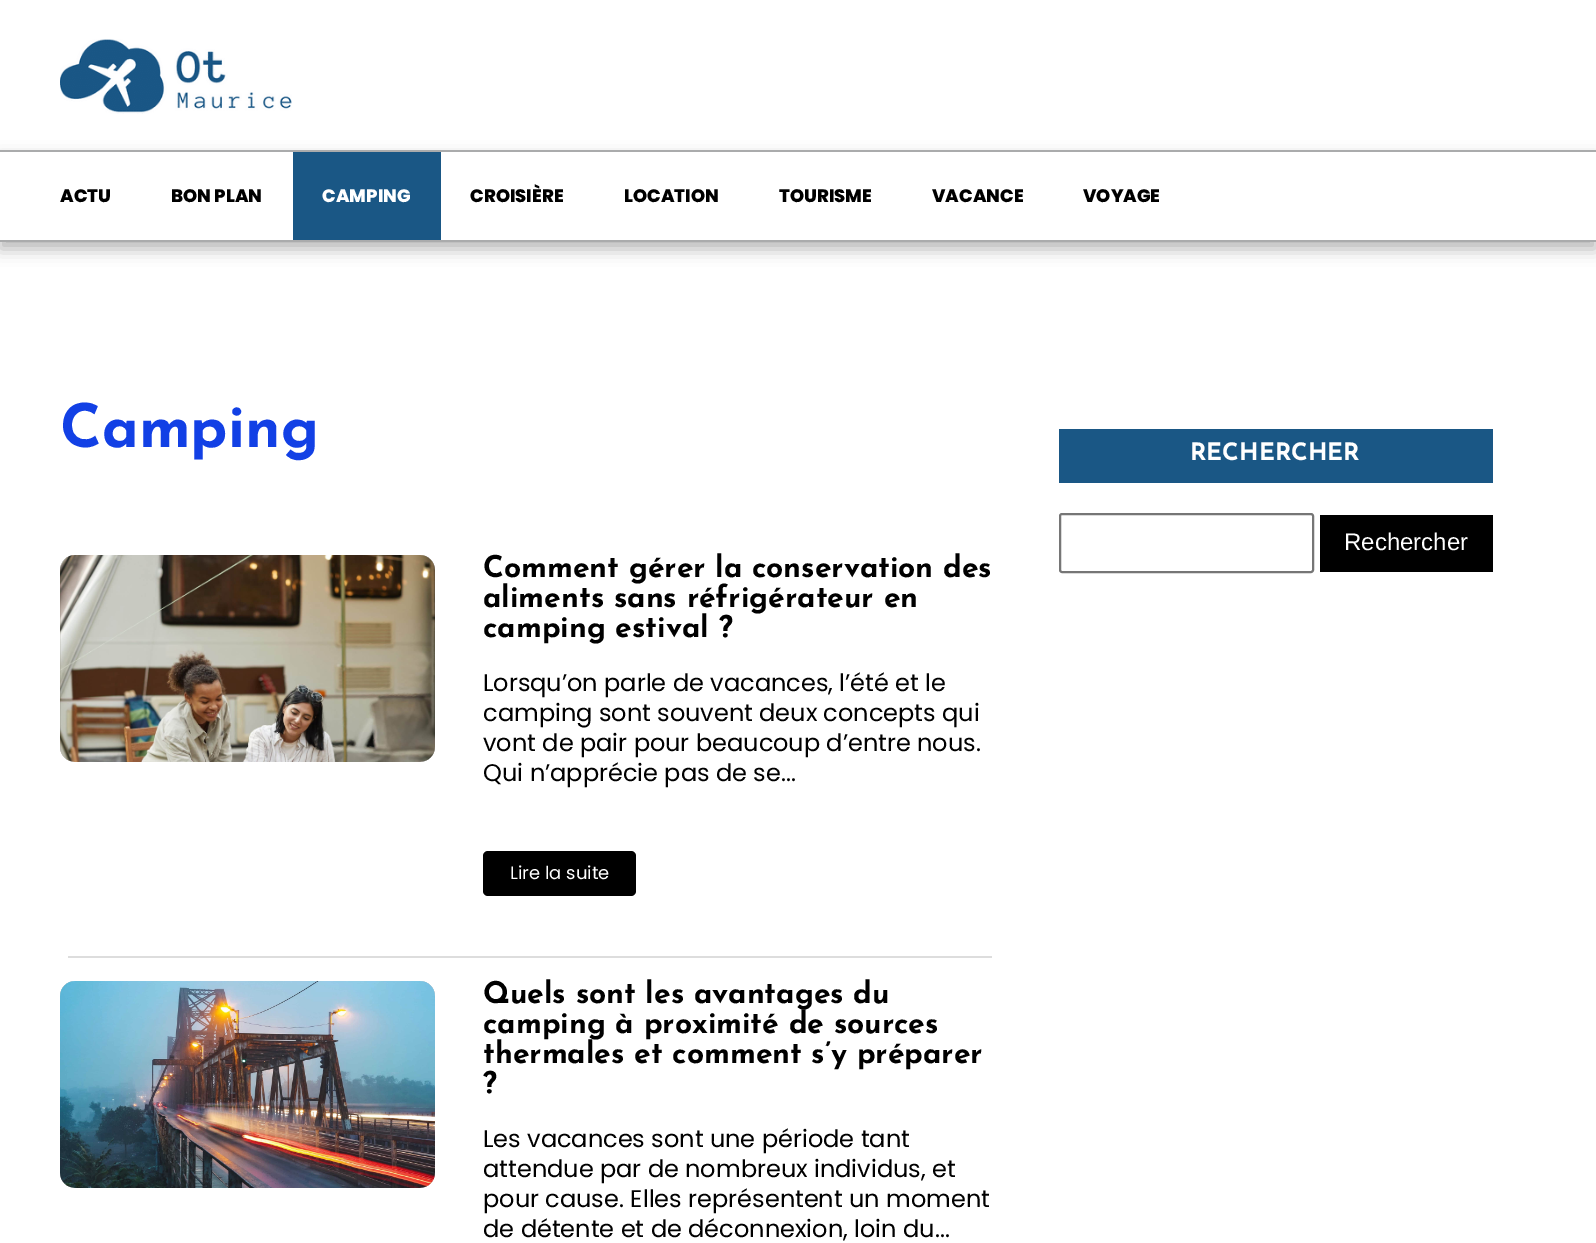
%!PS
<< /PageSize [1596 1243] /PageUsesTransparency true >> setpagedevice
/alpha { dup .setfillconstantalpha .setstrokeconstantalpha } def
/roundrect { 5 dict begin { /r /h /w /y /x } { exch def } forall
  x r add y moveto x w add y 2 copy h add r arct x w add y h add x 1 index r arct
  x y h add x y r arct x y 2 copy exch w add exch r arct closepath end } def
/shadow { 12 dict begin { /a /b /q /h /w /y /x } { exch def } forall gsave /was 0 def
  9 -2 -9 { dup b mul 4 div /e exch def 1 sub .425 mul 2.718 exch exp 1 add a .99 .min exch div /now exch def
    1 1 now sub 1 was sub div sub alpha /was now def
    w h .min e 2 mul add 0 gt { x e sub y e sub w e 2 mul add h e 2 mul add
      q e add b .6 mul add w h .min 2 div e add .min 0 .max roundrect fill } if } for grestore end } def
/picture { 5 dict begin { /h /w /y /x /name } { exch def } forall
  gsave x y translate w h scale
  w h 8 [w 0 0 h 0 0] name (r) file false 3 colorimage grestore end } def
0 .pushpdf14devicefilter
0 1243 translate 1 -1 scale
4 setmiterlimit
1 setgray
0 0 1596 1243 rectfill
(img1.rgb) 60 39 232 75 picture
0.42 setgray
0 158 1596 91 0 8 0.5 shadow
1 setgray
0 152 1596 88 rectfill
0.667 0.671 0.675 setrgbcolor
0 150 1596 2 rectfill
0 240 1596 2 rectfill
/Poppins-ExtraBold [18 0 0 -18 0 0] selectfont
0 setgray
60 202 moveto (ACTU) show
171 202 moveto (BON PLAN) show
0.102 0.341 0.522 setrgbcolor
293 152 148 88 rectfill
1 setgray
322 202 moveto (CAMPING) show
0 setgray
470 202 moveto (CROISIÈRE) show
624 202 moveto (LOCATION) show
779 202 moveto (TOURISME) show
932 202 moveto (VACANCE) show
1083 202 moveto (VOYAGE) show
/JosefinSans-Bold [60 0 0 -60 0 0] selectfont
0.071 0.251 0.898 setrgbcolor
60 447 moveto (Camping) show
0.867 setgray
68 956 924 2 rectfill
gsave 60 555 375 207 15 roundrect clip newpath
<< /ShadingType 2 /ColorSpace /DeviceRGB /Coords [102 804 399 507] /Extend [true true] /Function << /FunctionType 3 /Domain [0 1] /Functions [<< /FunctionType 2 /Domain [0 1] /C0 [0.933 0.933 0.933] /C1 [0.933 0.933 0.933] /N 1 >> << /FunctionType 2 /Domain [0 1] /C0 [0.867 0.867 0.867] /C1 [0.867 0.867 0.867] /N 1 >> << /FunctionType 2 /Domain [0 1] /C0 [0.933 0.933 0.933] /C1 [0.933 0.933 0.933] /N 1 >> << /FunctionType 2 /Domain [0 1] /C0 [0.867 0.867 0.867] /C1 [0.867 0.867 0.867] /N 1 >> << /FunctionType 2 /Domain [0 1] /C0 [0.933 0.933 0.933] /C1 [0.933 0.933 0.933] /N 1 >> << /FunctionType 2 /Domain [0 1] /C0 [0.867 0.867 0.867] /C1 [0.867 0.867 0.867] /N 1 >> << /FunctionType 2 /Domain [0 1] /C0 [0.933 0.933 0.933] /C1 [0.933 0.933 0.933] /N 1 >> << /FunctionType 2 /Domain [0 1] /C0 [0.867 0.867 0.867] /C1 [0.867 0.867 0.867] /N 1 >> << /FunctionType 2 /Domain [0 1] /C0 [0.933 0.933 0.933] /C1 [0.933 0.933 0.933] /N 1 >> << /FunctionType 2 /Domain [0 1] /C0 [0.867 0.867 0.867] /C1 [0.867 0.867 0.867] /N 1 >> << /FunctionType 2 /Domain [0 1] /C0 [0.933 0.933 0.933] /C1 [0.933 0.933 0.933] /N 1 >> << /FunctionType 2 /Domain [0 1] /C0 [0.867 0.867 0.867] /C1 [0.867 0.867 0.867] /N 1 >> << /FunctionType 2 /Domain [0 1] /C0 [0.933 0.933 0.933] /C1 [0.933 0.933 0.933] /N 1 >> << /FunctionType 2 /Domain [0 1] /C0 [0.867 0.867 0.867] /C1 [0.867 0.867 0.867] /N 1 >> << /FunctionType 2 /Domain [0 1] /C0 [0.933 0.933 0.933] /C1 [0.933 0.933 0.933] /N 1 >> << /FunctionType 2 /Domain [0 1] /C0 [0.867 0.867 0.867] /C1 [0.867 0.867 0.867] /N 1 >> << /FunctionType 2 /Domain [0 1] /C0 [0.933 0.933 0.933] /C1 [0.933 0.933 0.933] /N 1 >> << /FunctionType 2 /Domain [0 1] /C0 [0.867 0.867 0.867] /C1 [0.867 0.867 0.867] /N 1 >> << /FunctionType 2 /Domain [0 1] /C0 [0.933 0.933 0.933] /C1 [0.933 0.933 0.933] /N 1 >> << /FunctionType 2 /Domain [0 1] /C0 [0.867 0.867 0.867] /C1 [0.867 0.867 0.867] /N 1 >> << /FunctionType 2 /Domain [0 1] /C0 [0.933 0.933 0.933] /C1 [0.933 0.933 0.933] /N 1 >> << /FunctionType 2 /Domain [0 1] /C0 [0.867 0.867 0.867] /C1 [0.867 0.867 0.867] /N 1 >> << /FunctionType 2 /Domain [0 1] /C0 [0.933 0.933 0.933] /C1 [0.933 0.933 0.933] /N 1 >> << /FunctionType 2 /Domain [0 1] /C0 [0.867 0.867 0.867] /C1 [0.867 0.867 0.867] /N 1 >> << /FunctionType 2 /Domain [0 1] /C0 [0.933 0.933 0.933] /C1 [0.933 0.933 0.933] /N 1 >> << /FunctionType 2 /Domain [0 1] /C0 [0.867 0.867 0.867] /C1 [0.867 0.867 0.867] /N 1 >> << /FunctionType 2 /Domain [0 1] /C0 [0.933 0.933 0.933] /C1 [0.933 0.933 0.933] /N 1 >> << /FunctionType 2 /Domain [0 1] /C0 [0.867 0.867 0.867] /C1 [0.867 0.867 0.867] /N 1 >>] /Bounds [0.04 0.07 0.11 0.14 0.18 0.21 0.25 0.29 0.32 0.36 0.39 0.43 0.46 0.5 0.54 0.57 0.61 0.64 0.68 0.71 0.75 0.79 0.82 0.86 0.89 0.93 0.96] /Encode [0 1 0 1 0 1 0 1 0 1 0 1 0 1 0 1 0 1 0 1 0 1 0 1 0 1 0 1 0 1 0 1 0 1 0 1 0 1 0 1 0 1 0 1 0 1 0 1 0 1 0 1 0 1 0 1] >> >> shfill grestore
(img2.rgb) 60 555 375 207 picture
/JosefinSans-Bold [30 0 0 -30 0 0] selectfont
0 setgray
483 577 moveto (Comment gérer la conservation des) show
483 607 moveto (aliments sans réfrigérateur en) show
483 637 moveto (camping estival ?) show
/Poppins-Regular [24 0 0 -24 0 0] selectfont
483 691 moveto (Lorsqu’on parle de vacances, l’été et le) show
483 721 moveto (camping sont souvent deux concepts qui) show
483 751 moveto (vont de pair pour beaucoup d’entre nous.) show
483 781 moveto (Qui n’apprécie pas de se...) show
483 851 153 45 5 roundrect fill
/Poppins-Regular [18 0 0 -18 0 0] selectfont
1 setgray
510 879 moveto (Lire la suite) show
gsave 60 981 375 207 15 roundrect clip newpath
<< /ShadingType 2 /ColorSpace /DeviceRGB /Coords [102 1230 399 933] /Extend [true true] /Function << /FunctionType 3 /Domain [0 1] /Functions [<< /FunctionType 2 /Domain [0 1] /C0 [0.933 0.933 0.933] /C1 [0.933 0.933 0.933] /N 1 >> << /FunctionType 2 /Domain [0 1] /C0 [0.867 0.867 0.867] /C1 [0.867 0.867 0.867] /N 1 >> << /FunctionType 2 /Domain [0 1] /C0 [0.933 0.933 0.933] /C1 [0.933 0.933 0.933] /N 1 >> << /FunctionType 2 /Domain [0 1] /C0 [0.867 0.867 0.867] /C1 [0.867 0.867 0.867] /N 1 >> << /FunctionType 2 /Domain [0 1] /C0 [0.933 0.933 0.933] /C1 [0.933 0.933 0.933] /N 1 >> << /FunctionType 2 /Domain [0 1] /C0 [0.867 0.867 0.867] /C1 [0.867 0.867 0.867] /N 1 >> << /FunctionType 2 /Domain [0 1] /C0 [0.933 0.933 0.933] /C1 [0.933 0.933 0.933] /N 1 >> << /FunctionType 2 /Domain [0 1] /C0 [0.867 0.867 0.867] /C1 [0.867 0.867 0.867] /N 1 >> << /FunctionType 2 /Domain [0 1] /C0 [0.933 0.933 0.933] /C1 [0.933 0.933 0.933] /N 1 >> << /FunctionType 2 /Domain [0 1] /C0 [0.867 0.867 0.867] /C1 [0.867 0.867 0.867] /N 1 >> << /FunctionType 2 /Domain [0 1] /C0 [0.933 0.933 0.933] /C1 [0.933 0.933 0.933] /N 1 >> << /FunctionType 2 /Domain [0 1] /C0 [0.867 0.867 0.867] /C1 [0.867 0.867 0.867] /N 1 >> << /FunctionType 2 /Domain [0 1] /C0 [0.933 0.933 0.933] /C1 [0.933 0.933 0.933] /N 1 >> << /FunctionType 2 /Domain [0 1] /C0 [0.867 0.867 0.867] /C1 [0.867 0.867 0.867] /N 1 >> << /FunctionType 2 /Domain [0 1] /C0 [0.933 0.933 0.933] /C1 [0.933 0.933 0.933] /N 1 >> << /FunctionType 2 /Domain [0 1] /C0 [0.867 0.867 0.867] /C1 [0.867 0.867 0.867] /N 1 >> << /FunctionType 2 /Domain [0 1] /C0 [0.933 0.933 0.933] /C1 [0.933 0.933 0.933] /N 1 >> << /FunctionType 2 /Domain [0 1] /C0 [0.867 0.867 0.867] /C1 [0.867 0.867 0.867] /N 1 >> << /FunctionType 2 /Domain [0 1] /C0 [0.933 0.933 0.933] /C1 [0.933 0.933 0.933] /N 1 >> << /FunctionType 2 /Domain [0 1] /C0 [0.867 0.867 0.867] /C1 [0.867 0.867 0.867] /N 1 >> << /FunctionType 2 /Domain [0 1] /C0 [0.933 0.933 0.933] /C1 [0.933 0.933 0.933] /N 1 >> << /FunctionType 2 /Domain [0 1] /C0 [0.867 0.867 0.867] /C1 [0.867 0.867 0.867] /N 1 >> << /FunctionType 2 /Domain [0 1] /C0 [0.933 0.933 0.933] /C1 [0.933 0.933 0.933] /N 1 >> << /FunctionType 2 /Domain [0 1] /C0 [0.867 0.867 0.867] /C1 [0.867 0.867 0.867] /N 1 >> << /FunctionType 2 /Domain [0 1] /C0 [0.933 0.933 0.933] /C1 [0.933 0.933 0.933] /N 1 >> << /FunctionType 2 /Domain [0 1] /C0 [0.867 0.867 0.867] /C1 [0.867 0.867 0.867] /N 1 >> << /FunctionType 2 /Domain [0 1] /C0 [0.933 0.933 0.933] /C1 [0.933 0.933 0.933] /N 1 >> << /FunctionType 2 /Domain [0 1] /C0 [0.867 0.867 0.867] /C1 [0.867 0.867 0.867] /N 1 >>] /Bounds [0.04 0.07 0.11 0.14 0.18 0.21 0.25 0.29 0.32 0.36 0.39 0.43 0.46 0.5 0.54 0.57 0.61 0.64 0.68 0.71 0.75 0.79 0.82 0.86 0.89 0.93 0.96] /Encode [0 1 0 1 0 1 0 1 0 1 0 1 0 1 0 1 0 1 0 1 0 1 0 1 0 1 0 1 0 1 0 1 0 1 0 1 0 1 0 1 0 1 0 1 0 1 0 1 0 1 0 1 0 1 0 1] >> >> shfill grestore
(img3.rgb) 60 981 375 207 picture
/JosefinSans-Bold [30 0 0 -30 0 0] selectfont
0 setgray
483 1003 moveto (Quels sont les avantages du) show
483 1033 moveto (camping à proximité de sources) show
483 1063 moveto (thermales et comment s’y préparer) show
483 1093 moveto (?) show
/Poppins-Regular [24 0 0 -24 0 0] selectfont
483 1147 moveto (Les vacances sont une période tant) show
483 1177 moveto (attendue par de nombreux individus, et) show
483 1207 moveto (pour cause. Elles représentent un moment) show
483 1237 moveto (de détente et de déconnexion, loin du...) show
0.102 0.341 0.522 setrgbcolor
1059 429 434 54 rectfill
/JosefinSans-Bold [24 0 0 -24 0 0] selectfont
1 setgray
1190 460 moveto (RECHERCHER) show
0.463 setgray
2 setlinewidth
1060 514 253 58 2 roundrect stroke
0 setgray
1320 515 173 57 rectfill
/LiberationSans-Regular [24 0 0 -24 0 0] selectfont
1 setgray
1344 550 moveto (Rechercher) show
.poppdf14devicefilter showpage
